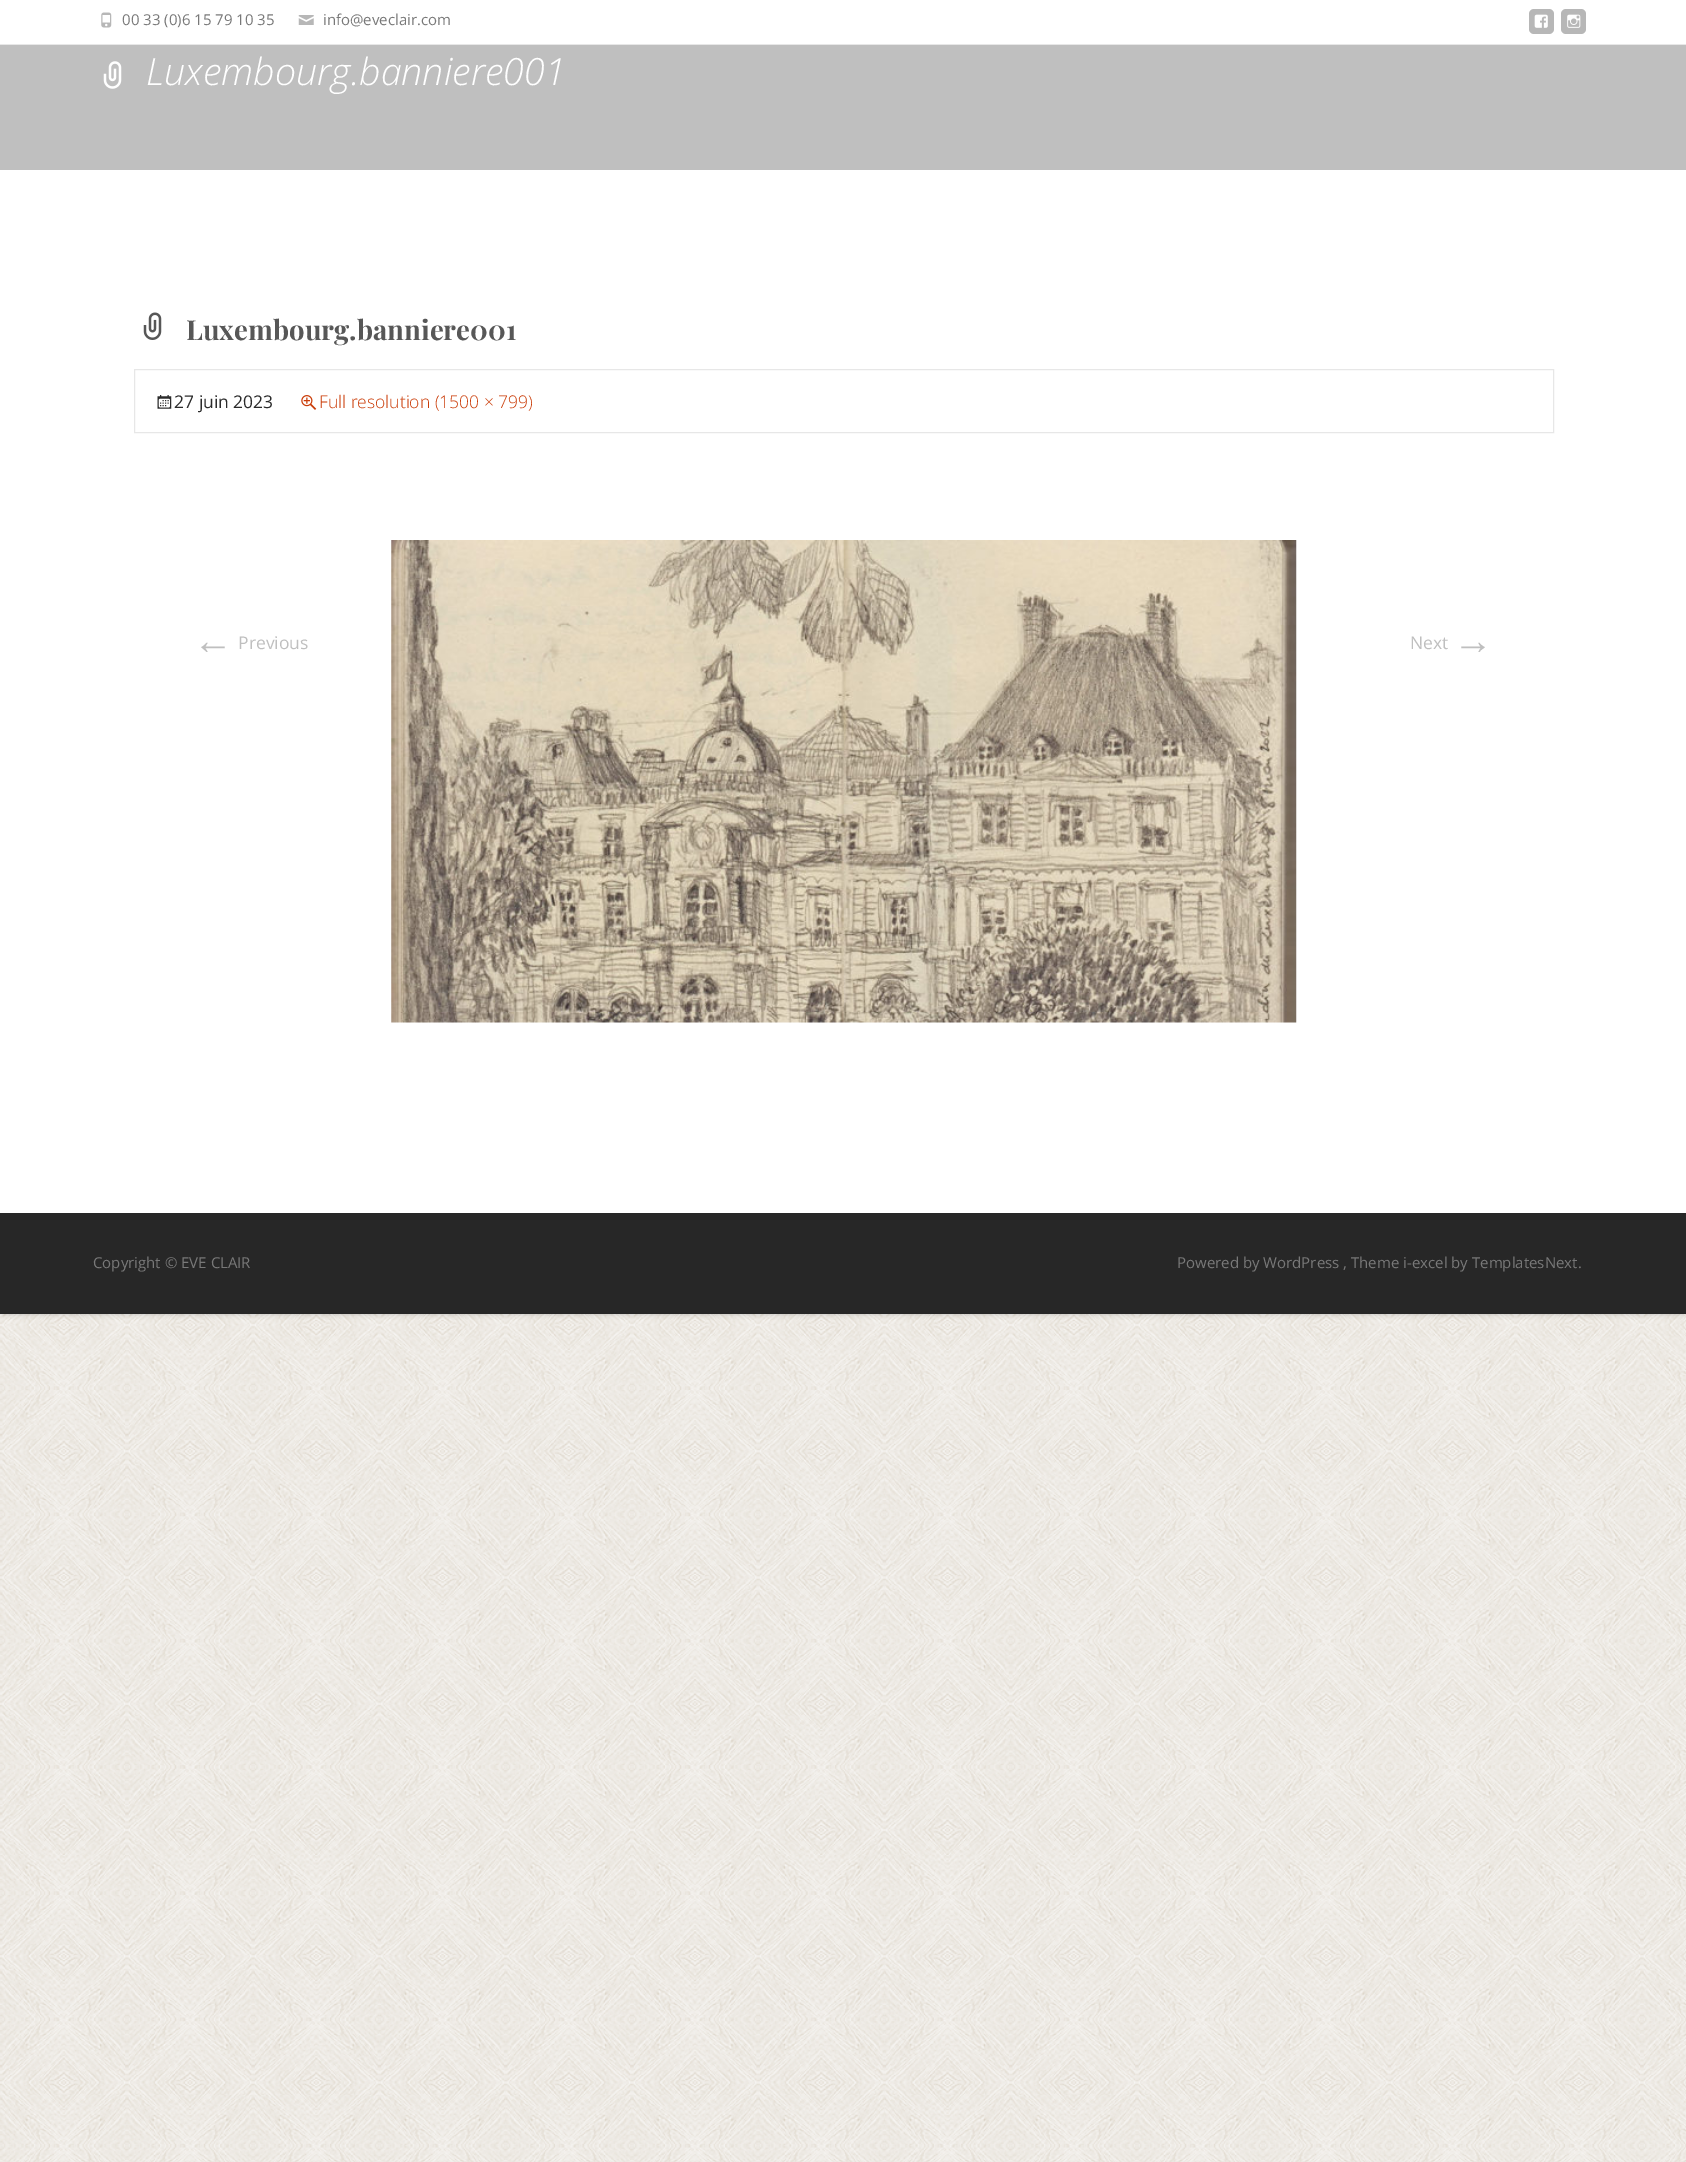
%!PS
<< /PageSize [1686 2162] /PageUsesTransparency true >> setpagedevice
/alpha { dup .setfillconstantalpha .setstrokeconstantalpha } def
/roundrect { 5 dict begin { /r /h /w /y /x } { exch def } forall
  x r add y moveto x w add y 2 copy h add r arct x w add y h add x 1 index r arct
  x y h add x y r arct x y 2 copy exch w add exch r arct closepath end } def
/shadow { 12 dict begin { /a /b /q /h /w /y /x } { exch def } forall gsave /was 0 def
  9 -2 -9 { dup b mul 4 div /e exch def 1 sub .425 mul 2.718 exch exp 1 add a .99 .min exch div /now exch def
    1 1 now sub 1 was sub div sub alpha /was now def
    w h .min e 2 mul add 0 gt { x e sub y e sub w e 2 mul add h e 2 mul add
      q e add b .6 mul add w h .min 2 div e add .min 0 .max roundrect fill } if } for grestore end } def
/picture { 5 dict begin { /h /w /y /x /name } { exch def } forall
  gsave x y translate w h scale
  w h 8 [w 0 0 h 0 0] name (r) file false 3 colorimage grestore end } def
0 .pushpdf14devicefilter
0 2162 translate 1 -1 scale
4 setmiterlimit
1 setgray
0 0 1686 2162 rectfill
(img1.rgb) 0 1314 1686 848 picture
0 setgray
0 0 1686 1314 2.5 2.5 0.1 shadow
0 0 1686 1314 2.5 2.5 0.1 shadow
1 setgray
0 0 1686 1213 rectfill
0.906 setgray
0 44 1686 1 rectfill
(img2.rgb) 101 12 11 16 picture
/OpenSans-Regular [15 0 0 -15 0 0] selectfont
0.471 setgray
122 25 moveto (00 33 \(0\)6 15 79 10 35) show
(img3.rgb) 298 15 16 10 picture
323 25 moveto (info@eveclair.com) show
0.718 setgray
1529 9 25 25 5 roundrect fill
(img4.rgb) 1534 14 14 14 picture
1561 9 25 25 5 roundrect fill
(img5.rgb) 1567 14 14 14 picture
0.749 setgray
0 45 1686 125 rectfill
(img6.rgb) 103 61 19 28 picture
/OpenSans-LightItalic [37.5 0 0 -37.5 0 0] selectfont
1 setgray
146 85 moveto (Luxembourg.banniere001) show
(img7.rgb) 143 312 19 28 picture
/PlayfairDisplay-Bold [27.5 0 0 -27.5 0 0] selectfont
0.341 setgray
186 340 moveto (Luxembourg.banniere001) show
0.906 setgray
134.5 369.5 1419 63 rectstroke
(img8.rgb) 157 395 15 14 picture
/OpenSans-Regular [17.5 0 0 -17.5 0 0] selectfont
0.169 setgray
174 408 moveto (27 juin 2023) show
(img9.rgb) 301 395 16 15 picture
/OpenSans-Light [17.5 0 0 -17.5 0 0] selectfont
0.792 0.235 0.031 setrgbcolor
319 408 moveto (Full resolution \(1500 × 799\)) show
(img10.rgb) 391 540 906 483 picture
/LiberationSerif-Regular [40 0 0 -40 0 0] selectfont
0.749 setgray
193 654 moveto (←) show
/OpenSans-Regular [17.5 0 0 -17.5 0 0] selectfont
238 649 moveto (Previous) show
1410 649 moveto (Next) show
/LiberationSerif-Regular [40 0 0 -40 0 0] selectfont
1453 654 moveto (→) show
0.153 setgray
0 1213 1686 101 rectfill
/OpenSans-Regular [15 0 0 -15 0 0] selectfont
0.471 setgray
93 1268 moveto (Copyright) show
/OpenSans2-Regular [15 0 0 -15 0 0] selectfont
165 1268 moveto (©) show
/OpenSans-Regular [15 0 0 -15 0 0] selectfont
181 1268 moveto (EVE CLAIR) show
1177 1268 moveto (Powered by WordPress , Theme i-excel by TemplatesNext.) show
.poppdf14devicefilter showpage
